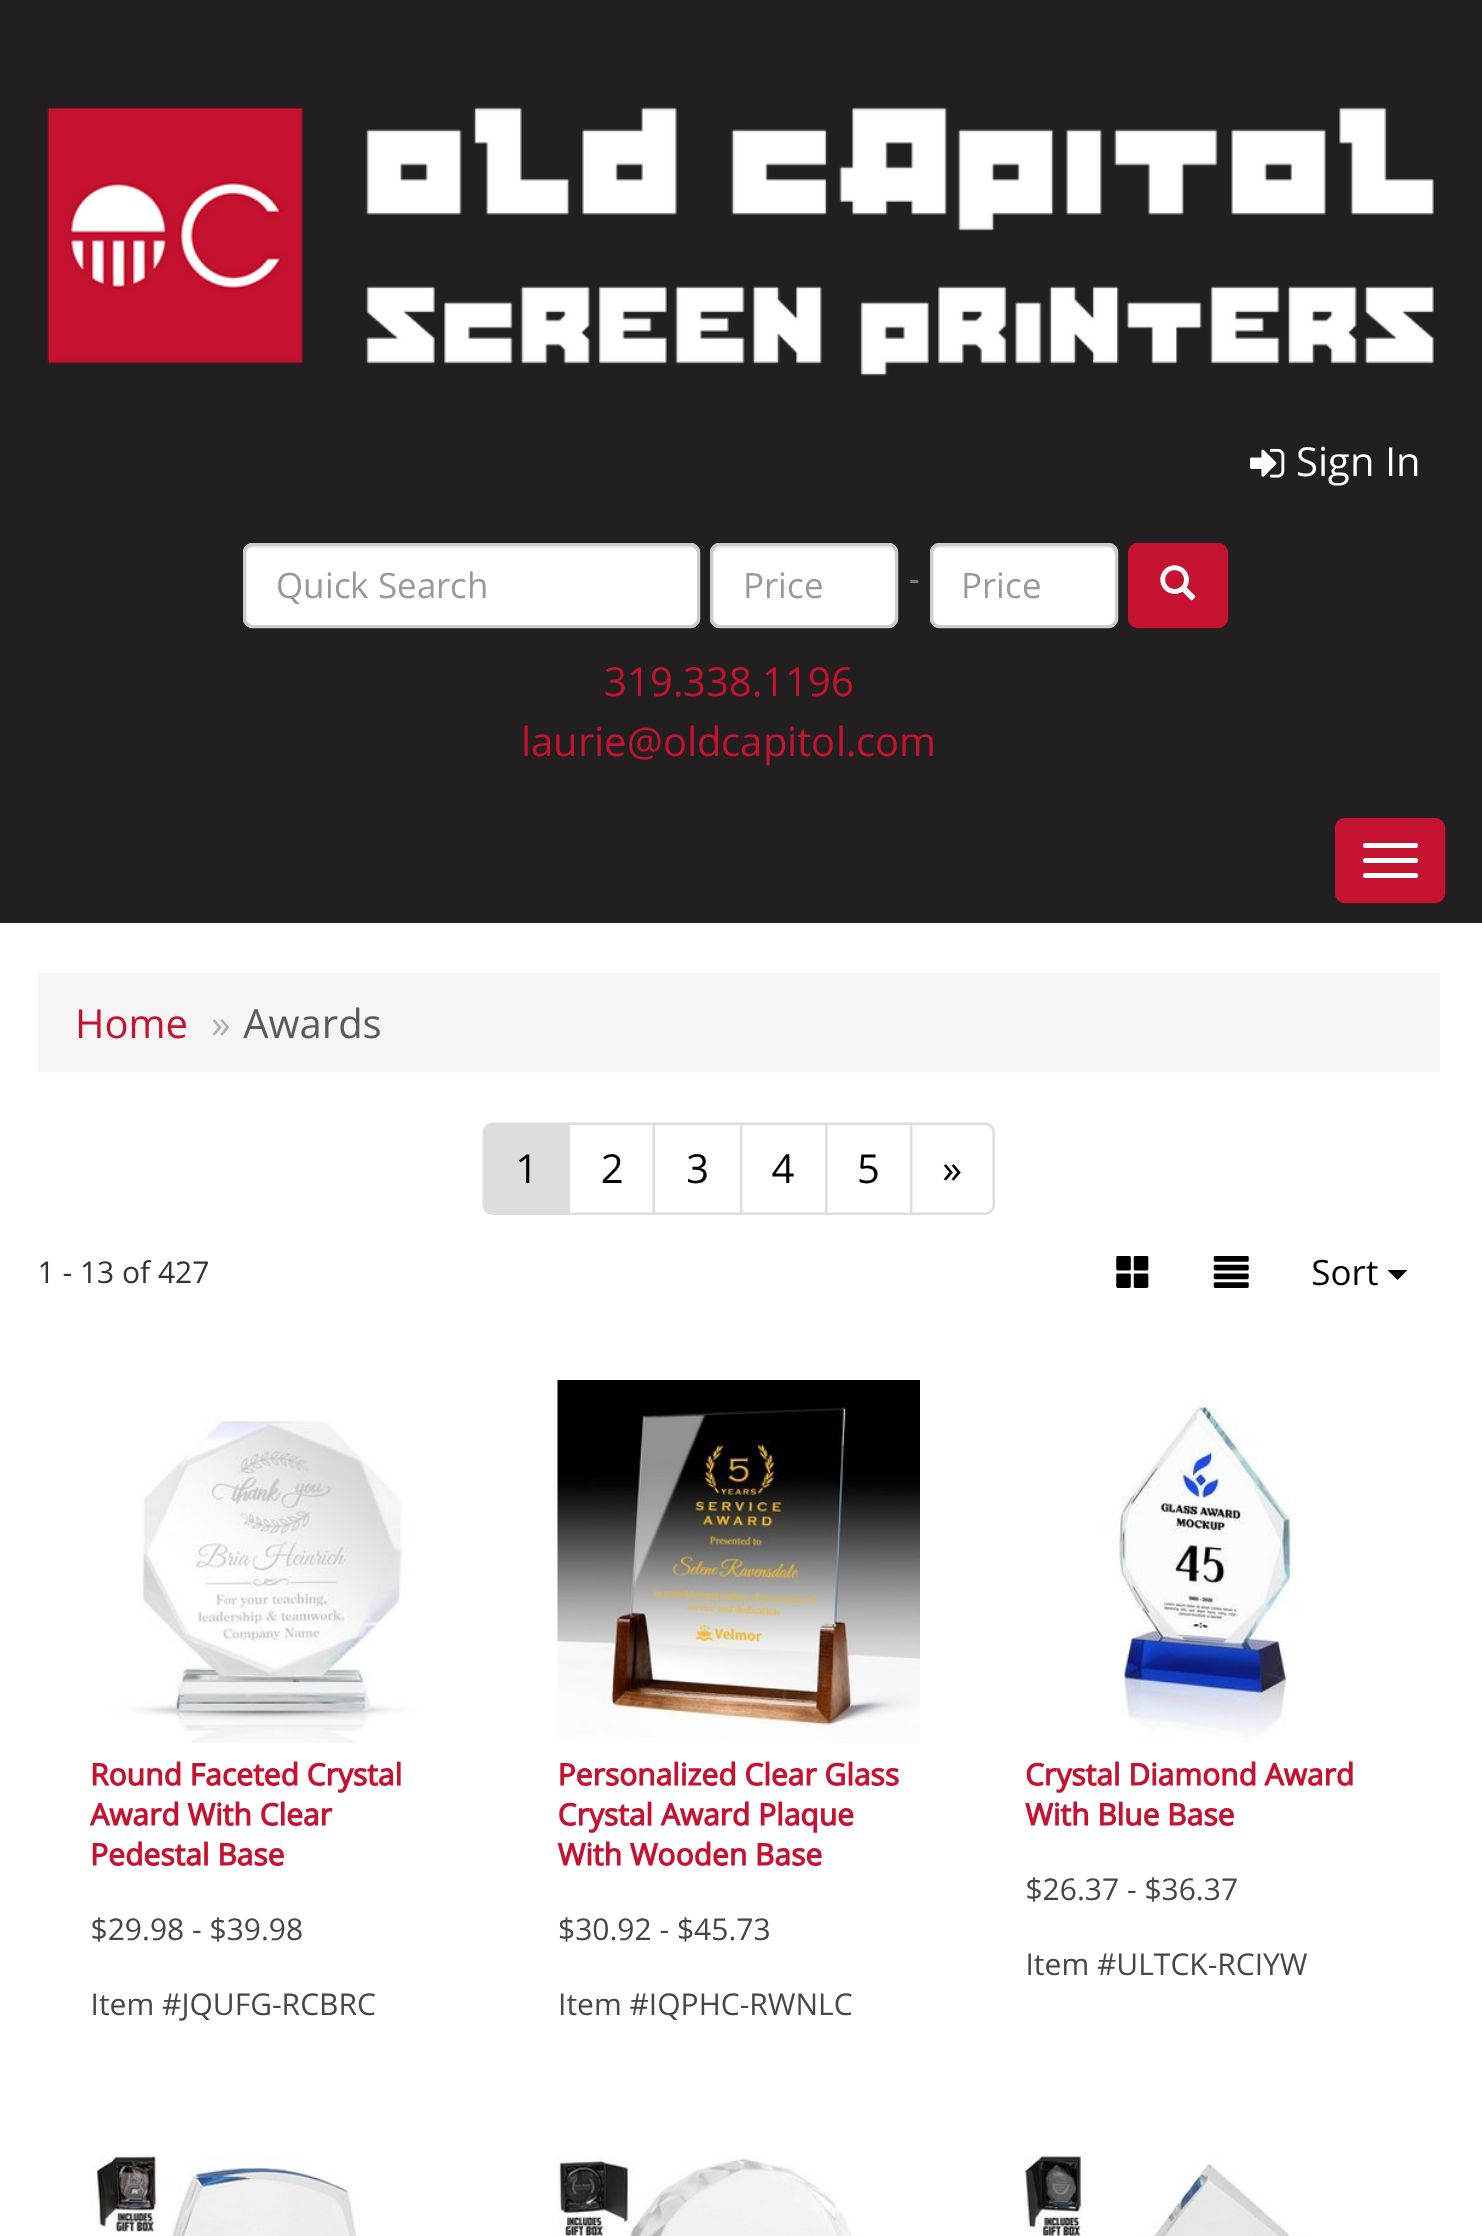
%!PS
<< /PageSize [1482 2236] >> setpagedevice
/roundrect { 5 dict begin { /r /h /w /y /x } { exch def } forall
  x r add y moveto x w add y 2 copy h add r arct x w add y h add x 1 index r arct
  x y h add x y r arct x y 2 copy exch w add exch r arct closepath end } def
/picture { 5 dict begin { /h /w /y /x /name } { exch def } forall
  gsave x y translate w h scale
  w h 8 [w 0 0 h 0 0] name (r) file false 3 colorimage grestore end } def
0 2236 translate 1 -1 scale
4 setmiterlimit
0.129 0.122 0.125 setrgbcolor
0 0 1482 2236 rectfill
(img1.rgb) 47 107 1387 269 picture
(img2.rgb) 1250 448 35 30 picture
/OpenSans-Regular [40 0 0 -40 0 0] selectfont
1 setgray
1296 476 moveto (Sign In) show
243 543 457 85 10 roundrect fill
0.925 setgray
newpath 252 548 moveto 690 548 lineto 694 548 698 551 698 555 curveto 698 550 696 545 690 545 curveto 253 545 lineto 247 545 245 550 245 555 curveto 245 551 248 548 252 548 curveto closepath fill
0.8 setgray
3 setlinewidth
244.5 544.5 454 82 8.5 roundrect stroke
/OpenSans-Regular [35 0 0 -35 0 0] selectfont
0.6 setgray
276 598 moveto (Quick Search) show
1 setgray
710 543 188 85 10 roundrect fill
0.925 setgray
newpath 720 548 moveto 888 548 lineto 892 548 895 551 895 555 curveto 895 553 lineto 895 549 891 545 887 545 curveto 721 545 lineto 717 545 714 548 713 551 curveto 715 549 717 548 720 548 curveto closepath fill
0.8 setgray
711.5 544.5 185 82 8.5 roundrect stroke
0.6 setgray
743 598 moveto (Price) show
/OpenSans-Bold [30 0 0 -30 0 0] selectfont
0.482 setgray
909 590 moveto (-) show
1 setgray
930 543 188 85 10 roundrect fill
0.925 setgray
newpath 940 548 moveto 1108 548 lineto 1112 548 1115 551 1115 555 curveto 1115 553 lineto 1115 549 1111 545 1107 545 curveto 941 545 lineto 937 545 934 548 933 551 curveto 935 549 937 548 940 548 curveto closepath fill
0.8 setgray
931.5 544.5 185 82 8.5 roundrect stroke
/OpenSans-Regular [35 0 0 -35 0 0] selectfont
0.6 setgray
961 598 moveto (Price) show
0.769 0.071 0.188 setrgbcolor
1129.5 544.5 97 82 8.5 roundrect gsave fill grestore
stroke
(img3.rgb) 1160 565 36 36 picture
/OpenSans-Regular [40 0 0 -40 0 0] selectfont
604 696 moveto (319.338.1196) show
521 756 moveto (laurie@oldcapitol.com) show
1336.5 819.5 107 82 8.5 roundrect gsave fill grestore
stroke
1 setgray
1363 843 55 5 2.5 roundrect fill
1363 858 55 5 2.5 roundrect fill
1363 873 55 5 2.5 roundrect fill
0 923 1482 1313 rectfill
(img4.rgb) 38 973 1402 1263 picture
showpage
